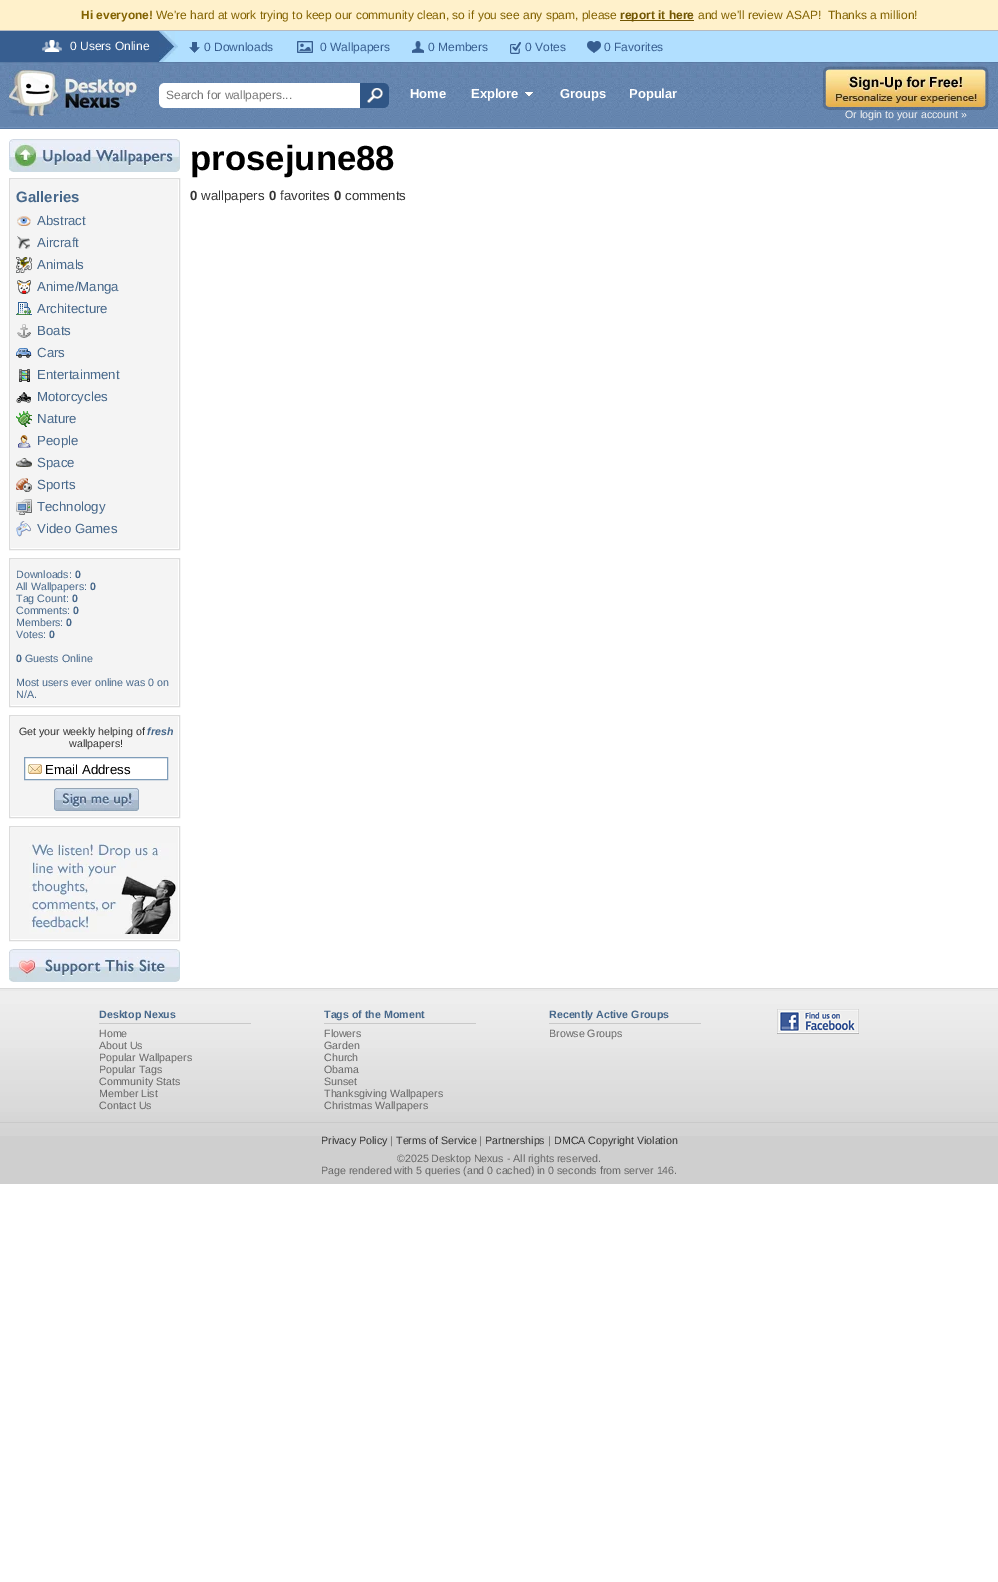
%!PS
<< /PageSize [998 1582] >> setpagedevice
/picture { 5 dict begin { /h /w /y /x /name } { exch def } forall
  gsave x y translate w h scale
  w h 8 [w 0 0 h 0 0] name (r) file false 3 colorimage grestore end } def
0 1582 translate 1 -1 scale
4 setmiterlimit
1 setgray
0 0 998 1582 rectfill
1 0.945 0.796 setrgbcolor
0 0 998 30 rectfill
/LiberationSans-Bold [12 0 0 -12 0 0] selectfont
0.51 0.384 0 setrgbcolor
81 19 moveto (Hi everyone!) show
/LiberationSans-Regular [12 0 0 -12 0 0] selectfont
156 19 moveto (We're hard at work trying to keep our community clean, so if you see any spam, please) show
0.439 0.333 0 setrgbcolor
620 20 74 1 rectfill
/LiberationSans-Bold [12 0 0 -12 0 0] selectfont
620 19 moveto (report it here) show
/LiberationSans-Regular [12 0 0 -12 0 0] selectfont
0.51 0.384 0 setrgbcolor
698 19 moveto (and we'll review ASAP!  Thanks a million!) show
0.694 0.875 1 setrgbcolor
178 31 820 31 rectfill
0.714 0.729 0.753 setrgbcolor
0 30 998 1 rectfill
0.216 0.369 0.565 setrgbcolor
0 31 159 31 rectfill
(img1.rgb) 42 40 20 12 picture
1 setgray
70 50 moveto (0 Users Online) show
(img2.rgb) 159 31 19 31 picture
(img3.rgb) 189 42 11 11 picture
0.216 0.369 0.565 setrgbcolor
204 51 moveto (0 Downloads) show
(img4.rgb) 297 41 16 12 picture
320 51 moveto (0 Wallpapers) show
(img5.rgb) 412 41 12 12 picture
428 51 moveto (0 Members) show
(img6.rgb) 510 42 11 12 picture
525 51 moveto (0 Votes) show
(img7.rgb) 587 41 14 12 picture
604 51 moveto (0 Favorites) show
(img8.rgb) 0 62 998 67 picture
(img9.rgb) 9 70 128 46 picture
1 setgray
newpath 165 83 moveto 376 83 lineto 376 108 lineto 165 108 lineto 161.5 108 159 105.5 159 102 curveto 159 89 lineto 159 85.5 161.5 83 165 83 curveto closepath fill
0.467 setgray
166 99 moveto (Search for wallpapers...) show
0.188 0.337 0.525 setrgbcolor
newpath 360 83 moveto 383 83 lineto 386.5 83 389 85.5 389 89 curveto 389 102 lineto 389 105.5 386.5 108 383 108 curveto 360 108 lineto closepath fill
(img10.rgb) 367 88 16 15 picture
/LiberationSans-Bold [13 0 0 -13 0 0] selectfont
1 setgray
410 98 moveto (Home) show
471 98 moveto (Explore) show
(img11.rgb) 524 92 10 5 picture
560 98 moveto (Groups) show
629 98 moveto (Popular) show
(img12.rgb) 823 66 166 44 picture
/LiberationSans-Regular [10.65 0 0 -10.65 0 0] selectfont
0.957 setgray
845 118 moveto (Or login to your account ») show
/LiberationSans-Bold [34.75 0 0 -34.75 0 0] selectfont
0 setgray
190 170 moveto (prosejune88) show
/LiberationSans-Bold [13.25 0 0 -13.25 0 0] selectfont
0.2 setgray
190 200 moveto (0) show
/LiberationSans-Regular [13.25 0 0 -13.25 0 0] selectfont
201 200 moveto (wallpapers) show
/LiberationSans-Bold [13.25 0 0 -13.25 0 0] selectfont
269 200 moveto (0) show
/LiberationSans-Regular [13.25 0 0 -13.25 0 0] selectfont
280 200 moveto (favorites) show
/LiberationSans-Bold [13.25 0 0 -13.25 0 0] selectfont
334 200 moveto (0) show
/LiberationSans-Regular [13.25 0 0 -13.25 0 0] selectfont
345 200 moveto (comments) show
(img13.rgb) 9 139 171 33 picture
0.863 setgray
9.5 178.5 170 371 rectstroke
0.957 setgray
11 180 167 368 rectfill
/LiberationSans-Bold [15 0 0 -15 0 0] selectfont
0.275 0.404 0.541 setrgbcolor
16 202 moveto (Galleries) show
(img14.rgb) 17 216 14 10 picture
/LiberationSans-Regular [13.25 0 0 -13.25 0 0] selectfont
37 225 moveto (Abstract) show
(img15.rgb) 17 236 13 13 picture
37 247 moveto (Aircraft) show
(img16.rgb) 16 257 16 16 picture
37 269 moveto (Animals) show
(img17.rgb) 17 280 14 14 picture
37 291 moveto (Anime/Manga) show
(img18.rgb) 16 302 16 13 picture
37 313 moveto (Architecture) show
(img19.rgb) 17 324 14 14 picture
37 335 moveto (Boats) show
(img20.rgb) 16 348 16 10 picture
37 357 moveto (Cars) show
(img21.rgb) 19 369 11 13 picture
37 379 moveto (Entertainment) show
(img22.rgb) 16 391 16 12 picture
37 401 moveto (Motorcycles) show
(img23.rgb) 16 411 16 16 picture
37 423 moveto (Nature) show
(img24.rgb) 18 435 13 13 picture
37 445 moveto (People) show
(img25.rgb) 16 458 16 9 picture
37 467 moveto (Space) show
(img26.rgb) 16 478 16 14 picture
37 489 moveto (Sports) show
(img27.rgb) 16 499 16 16 picture
37 511 moveto (Technology) show
(img28.rgb) 16 521 15 16 picture
37 533 moveto (Video Games) show
0.863 setgray
9.5 558.5 170 148 rectstroke
0.957 setgray
11 560 167 145 rectfill
/LiberationSans-Regular [10.65 0 0 -10.65 0 0] selectfont
0.275 0.404 0.541 setrgbcolor
16 578 moveto (Downloads:) show
/LiberationSans-Bold [10.65 0 0 -10.65 0 0] selectfont
75 578 moveto (0) show
/LiberationSans-Regular [10.65 0 0 -10.65 0 0] selectfont
16 590 moveto (All Wallpapers:) show
/LiberationSans-Bold [10.65 0 0 -10.65 0 0] selectfont
90 590 moveto (0) show
/LiberationSans-Regular [10.65 0 0 -10.65 0 0] selectfont
16 602 moveto (Tag Count:) show
/LiberationSans-Bold [10.65 0 0 -10.65 0 0] selectfont
72 602 moveto (0) show
/LiberationSans-Regular [10.65 0 0 -10.65 0 0] selectfont
16 614 moveto (Comments:) show
/LiberationSans-Bold [10.65 0 0 -10.65 0 0] selectfont
73 614 moveto (0) show
/LiberationSans-Regular [10.65 0 0 -10.65 0 0] selectfont
16 626 moveto (Members:) show
/LiberationSans-Bold [10.65 0 0 -10.65 0 0] selectfont
66 626 moveto (0) show
/LiberationSans-Regular [10.65 0 0 -10.65 0 0] selectfont
16 638 moveto (Votes:) show
/LiberationSans-Bold [10.65 0 0 -10.65 0 0] selectfont
49 638 moveto (0) show
16 662 moveto (0) show
/LiberationSans-Regular [10.65 0 0 -10.65 0 0] selectfont
25 662 moveto (Guests Online) show
16 686 moveto (Most users ever online was 0 on) show
16 698 moveto (N/A.) show
0.863 setgray
9.5 715.5 170 102 rectstroke
0.957 setgray
11 717 167 99 rectfill
0.2 setgray
19 735 moveto (Get your weekly helping of) show
/LiberationSans-BoldItalic [10.65 0 0 -10.65 0 0] selectfont
0.275 0.404 0.541 setrgbcolor
147 735 moveto (fresh) show
/LiberationSans-Regular [10.65 0 0 -10.65 0 0] selectfont
0.2 setgray
69 747 moveto (wallpapers!) show
1 setgray
25 758 142 21 rectfill
(img29.rgb) 25 764 17 10 picture
0.498 0.616 0.725 setrgbcolor
24.5 757.5 143 22 rectstroke
/LiberationSans-Regular [13.25 0 0 -13.25 0 0] selectfont
0 setgray
45 774 moveto (Email Address) show
(img30.rgb) 54 788 85 23 picture
0.863 setgray
9.5 826.5 170 114 rectstroke
0.957 setgray
11 828 167 111 rectfill
(img31.rgb) 29 843 147 91 picture
(img32.rgb) 9 949 171 33 picture
0.812 setgray
0 1136 998 48 rectfill
(img33.rgb) 0 988 998 148 picture
/LiberationSans-Bold [10.65 0 0 -10.65 0 0] selectfont
0.275 0.404 0.541 setrgbcolor
99 1018 moveto (Desktop Nexus) show
0.788 setgray
99 1023 152 1 rectfill
/LiberationSans-Regular [10.65 0 0 -10.65 0 0] selectfont
0.4 setgray
99 1037 moveto (Home) show
99 1049 moveto (About Us) show
99 1061 moveto (Popular Wallpapers) show
99 1073 moveto (Popular Tags) show
99 1085 moveto (Community Stats) show
99 1097 moveto (Member List) show
99 1109 moveto (Contact Us) show
/LiberationSans-Bold [10.65 0 0 -10.65 0 0] selectfont
0.275 0.404 0.541 setrgbcolor
324 1018 moveto (Tags of the Moment) show
0.788 setgray
324 1023 152 1 rectfill
/LiberationSans-Regular [10.65 0 0 -10.65 0 0] selectfont
0.4 setgray
324 1037 moveto (Flowers) show
324 1049 moveto (Garden) show
324 1061 moveto (Church) show
324 1073 moveto (Obama) show
324 1085 moveto (Sunset) show
324 1097 moveto (Thanksgiving Wallpapers) show
324 1109 moveto (Christmas Wallpapers) show
/LiberationSans-Bold [10.65 0 0 -10.65 0 0] selectfont
0.275 0.404 0.541 setrgbcolor
549 1018 moveto (Recently Active Groups) show
0.788 setgray
549 1023 152 1 rectfill
/LiberationSans-Regular [10.65 0 0 -10.65 0 0] selectfont
0.4 setgray
549 1037 moveto (Browse Groups) show
(img34.rgb) 777 1009 82 25 picture
0.788 setgray
0 1122 998 1 rectfill
0.2 setgray
321 1144 moveto (Privacy Policy) show
0.4 setgray
390 1144 moveto (|) show
0.2 setgray
396 1144 moveto (Terms of Service) show
0.4 setgray
479 1144 moveto (|) show
0.2 setgray
485 1144 moveto (Partnerships) show
0.4 setgray
548 1144 moveto (|) show
0.2 setgray
554 1144 moveto (DMCA Copyright Violation) show
0.4 setgray
397 1162 moveto (©2025 Desktop Nexus - All rights reserved.) show
321 1174 moveto (Page rendered with 5 queries \(and 0 cached\) in 0 seconds from server 146.) show
showpage
